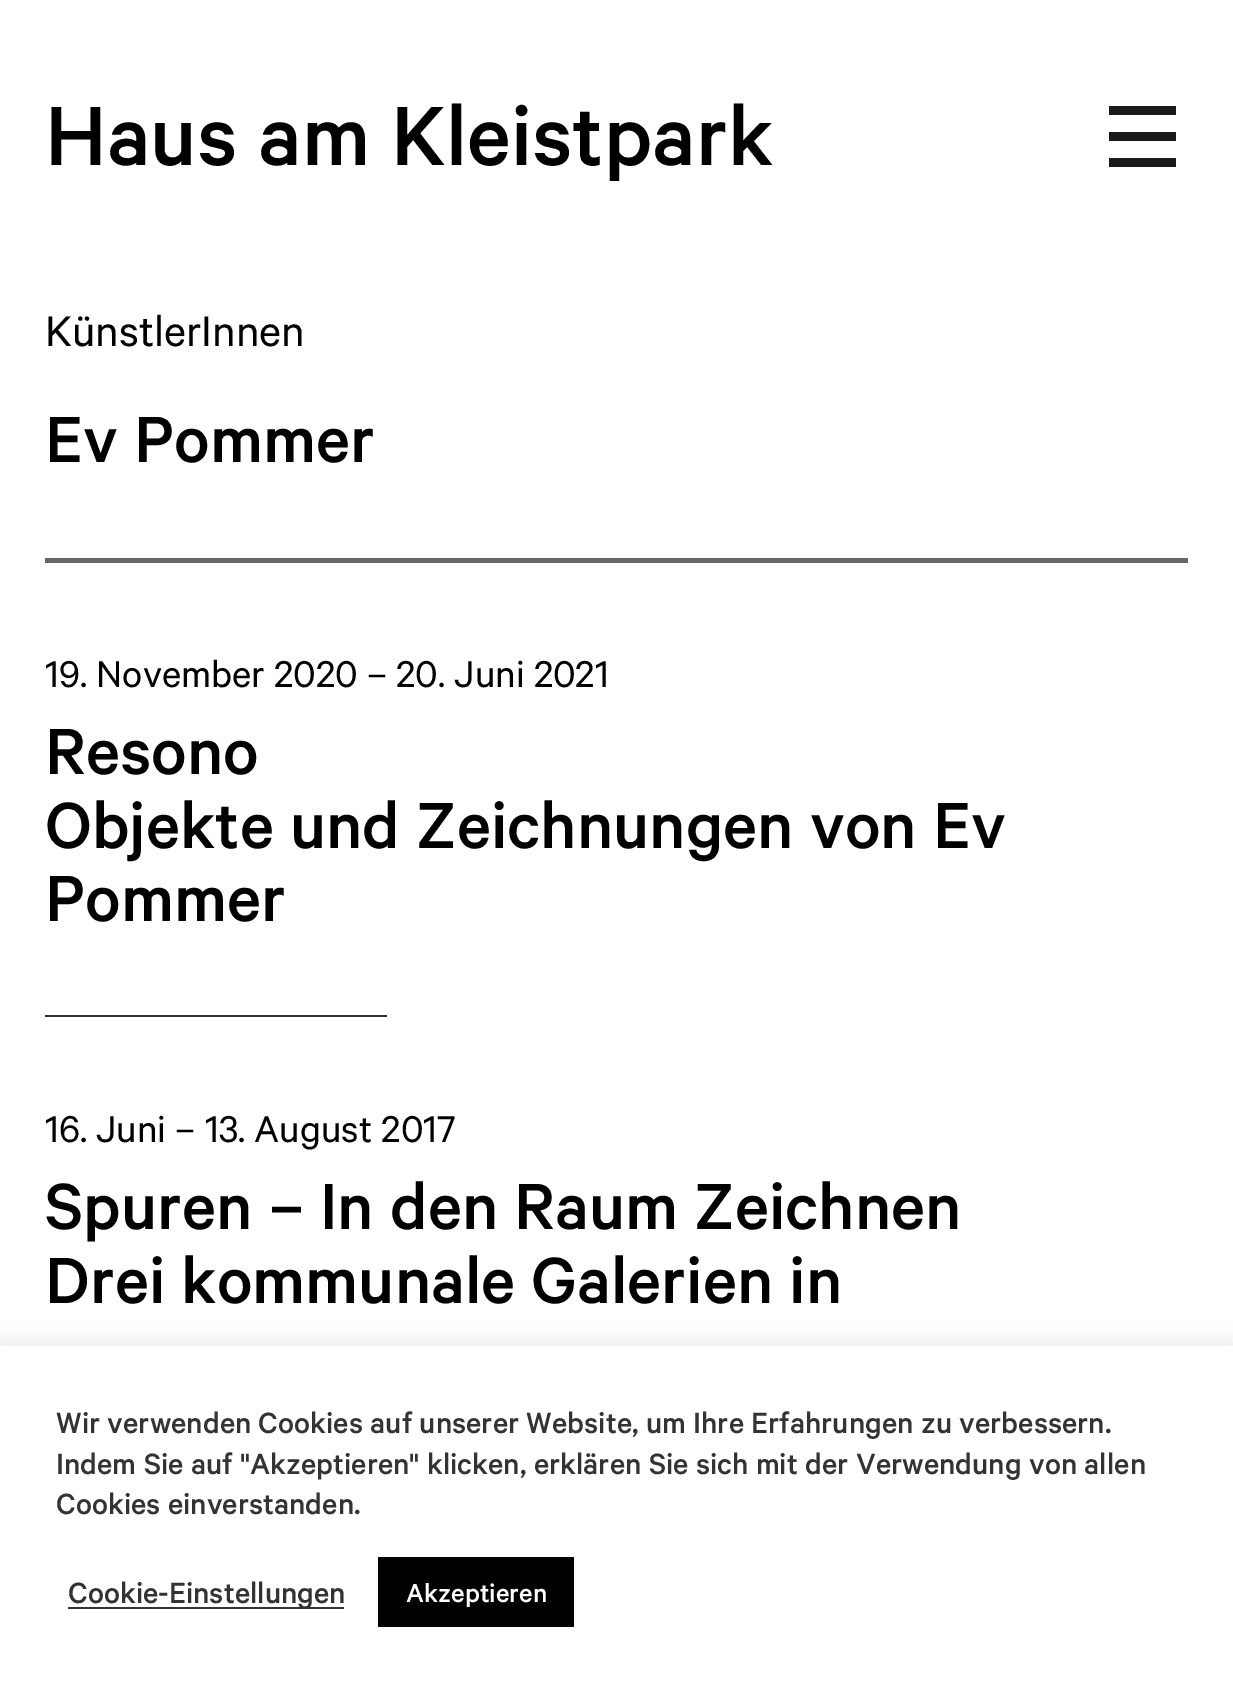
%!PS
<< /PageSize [1233 1694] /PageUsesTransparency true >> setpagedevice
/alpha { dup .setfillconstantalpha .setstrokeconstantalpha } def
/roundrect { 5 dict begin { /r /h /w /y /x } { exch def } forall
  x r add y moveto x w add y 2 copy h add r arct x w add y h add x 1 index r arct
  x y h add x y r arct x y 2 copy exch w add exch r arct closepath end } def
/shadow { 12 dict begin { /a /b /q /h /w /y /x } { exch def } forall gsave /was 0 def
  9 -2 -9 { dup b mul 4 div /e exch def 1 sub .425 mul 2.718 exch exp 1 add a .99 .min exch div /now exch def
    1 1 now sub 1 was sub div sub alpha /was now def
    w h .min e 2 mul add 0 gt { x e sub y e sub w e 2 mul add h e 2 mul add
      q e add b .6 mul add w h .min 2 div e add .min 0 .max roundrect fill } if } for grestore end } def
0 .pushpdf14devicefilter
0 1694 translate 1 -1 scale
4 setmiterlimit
1 setgray
0 0 1233 1694 rectfill
/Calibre-Medium [94.5 0 0 -94.5 0 0] selectfont
0 setgray
45 165 moveto (Haus am Kleistpark) show
0.102 0.102 0.094 setrgbcolor
1109 106 67 9 rectfill
1109 132 67 9 rectfill
1109 158 67 9 rectfill
/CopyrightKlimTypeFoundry-Regular [48 0 0 -48 0 0] selectfont
0 setgray
45 346 moveto (KünstlerInnen) show
/Calibre-Medium [73.5 0 0 -73.5 0 0] selectfont
45 462 moveto (Ev Pommer) show
0.4 setgray
45 558 1143 5 rectfill
/CopyrightKlimTypeFoundry-Regular [42 0 0 -42 0 0] selectfont
0 setgray
45 687 moveto (19. November 2020 – 20. Juni 2021) show
/Calibre-Medium [73.5 0 0 -73.5 0 0] selectfont
45 774 moveto (Resono) show
45 848 moveto (Objekte und Zeichnungen von Ev) show
45 921 moveto (Pommer) show
0.2 setgray
45 1015 342 2 rectfill
/CopyrightKlimTypeFoundry-Regular [42 0 0 -42 0 0] selectfont
0 setgray
45 1142 moveto (16. Juni – 13. August 2017) show
/Calibre-Medium [73.5 0 0 -73.5 0 0] selectfont
45 1229 moveto (Spuren – In den Raum Zeichnen) show
45 1303 moveto (Drei kommunale Galerien in) show
0.675 0.671 0.671 setrgbcolor
0 1343 1233 349 0 11 0.3 shadow
1 setgray
0 1346 1233 348 rectfill
/Calibre-Medium [33 0 0 -33 0 0] selectfont
0.2 setgray
56 1433 moveto (Wir verwenden Cookies auf unserer Website, um Ihre Erfahrungen zu verbessern.) show
56 1474 moveto (Indem Sie auf "Akzeptieren" klicken, erklären Sie sich mit der Verwendung von allen) show
56 1514 moveto (Cookies einverstanden.) show
68 1607 276 2 rectfill
68 1603 moveto (Cookie-Einstellungen) show
0.008 0 0 setrgbcolor
378 1557 196 70 rectfill
/Calibre-Medium [29.25 0 0 -29.25 0 0] selectfont
1 setgray
406 1602 moveto (Akzeptieren) show
.poppdf14devicefilter showpage
